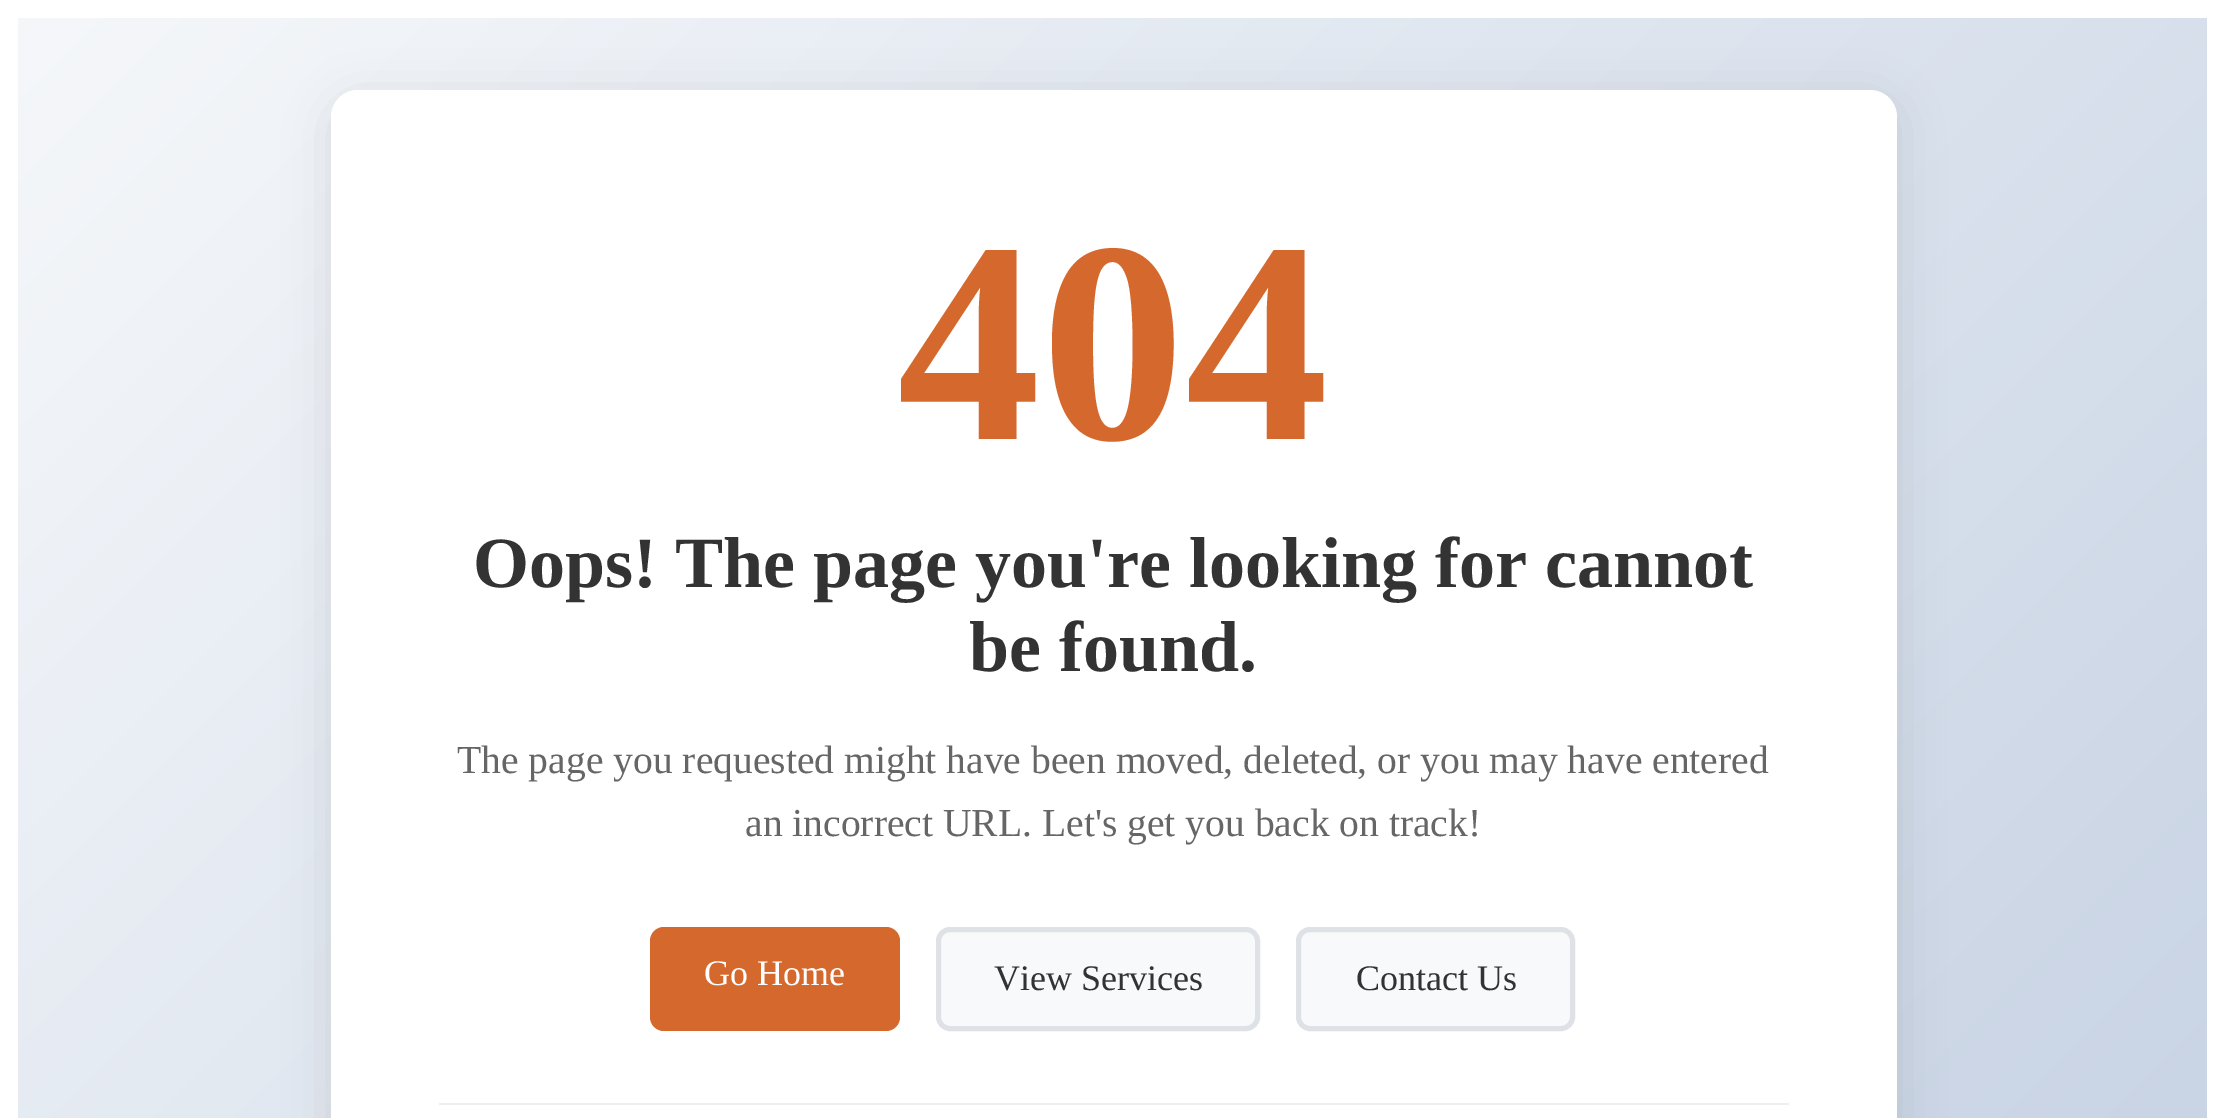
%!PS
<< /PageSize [2224 1118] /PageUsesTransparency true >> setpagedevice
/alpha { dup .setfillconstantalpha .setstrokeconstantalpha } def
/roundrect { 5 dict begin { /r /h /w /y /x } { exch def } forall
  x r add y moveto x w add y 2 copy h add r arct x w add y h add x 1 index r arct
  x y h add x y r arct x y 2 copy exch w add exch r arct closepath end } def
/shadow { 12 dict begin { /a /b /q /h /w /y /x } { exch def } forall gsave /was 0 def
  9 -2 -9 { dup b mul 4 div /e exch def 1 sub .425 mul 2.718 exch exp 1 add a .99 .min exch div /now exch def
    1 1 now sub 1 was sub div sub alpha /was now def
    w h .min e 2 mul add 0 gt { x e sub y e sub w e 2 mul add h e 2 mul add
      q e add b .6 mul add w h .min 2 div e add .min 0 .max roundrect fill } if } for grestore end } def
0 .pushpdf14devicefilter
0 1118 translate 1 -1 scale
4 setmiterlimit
1 setgray
0 0 2224 1118 rectfill
gsave newpath 18 18 moveto 2207 18 lineto 2207 1118 lineto 18 1118 lineto closepath clip newpath
<< /ShadingType 2 /ColorSpace /DeviceRGB /Coords [182 -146 2044 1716] /Extend [true true] /Function << /FunctionType 2 /Domain [0 1] /C0 [0.961 0.969 0.98] /C1 [0.765 0.812 0.886] /N 1 >> >> shfill grestore
0 setgray
331 99 1566 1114 27 22.5 0.1 shadow
1 setgray
331 90 1566 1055 27 roundrect fill
/LiberationSerif-Bold [288 0 0 -288 0 0] selectfont
0.835 0.408 0.176 setrgbcolor
897 439 moveto (404) show
/LiberationSerif-Bold [72 0 0 -72 0 0] selectfont
0.2 setgray
473 587 moveto (Oops! The page you're looking for cannot) show
969 671 moveto (be found.) show
/LiberationSerif-Regular [39.6 0 0 -39.6 0 0] selectfont
0.4 setgray
457 773 moveto (The page you requested might have been moved, deleted, or you may have entered) show
745 836 moveto (an incorrect URL. Let's get you back on track!) show
0.835 0.408 0.176 setrgbcolor
650 927 250 104 14 roundrect fill
/LiberationSerif-Regular [36 0 0 -36 0 0] selectfont
1 setgray
704 985 moveto (Go Home) show
0.973 0.976 0.98 setrgbcolor
938.5 929.5 319 99 11.5 roundrect gsave fill grestore
0.871 0.886 0.902 setrgbcolor
5 setlinewidth
stroke
0.2 setgray
994 990 moveto (View Services) show
0.973 0.976 0.98 setrgbcolor
1298.5 929.5 274 99 11.5 roundrect gsave fill grestore
0.871 0.886 0.902 setrgbcolor
stroke
0.2 setgray
1356 990 moveto (Contact Us) show
0.933 setgray
439 1103 1350 2 rectfill
.poppdf14devicefilter showpage
